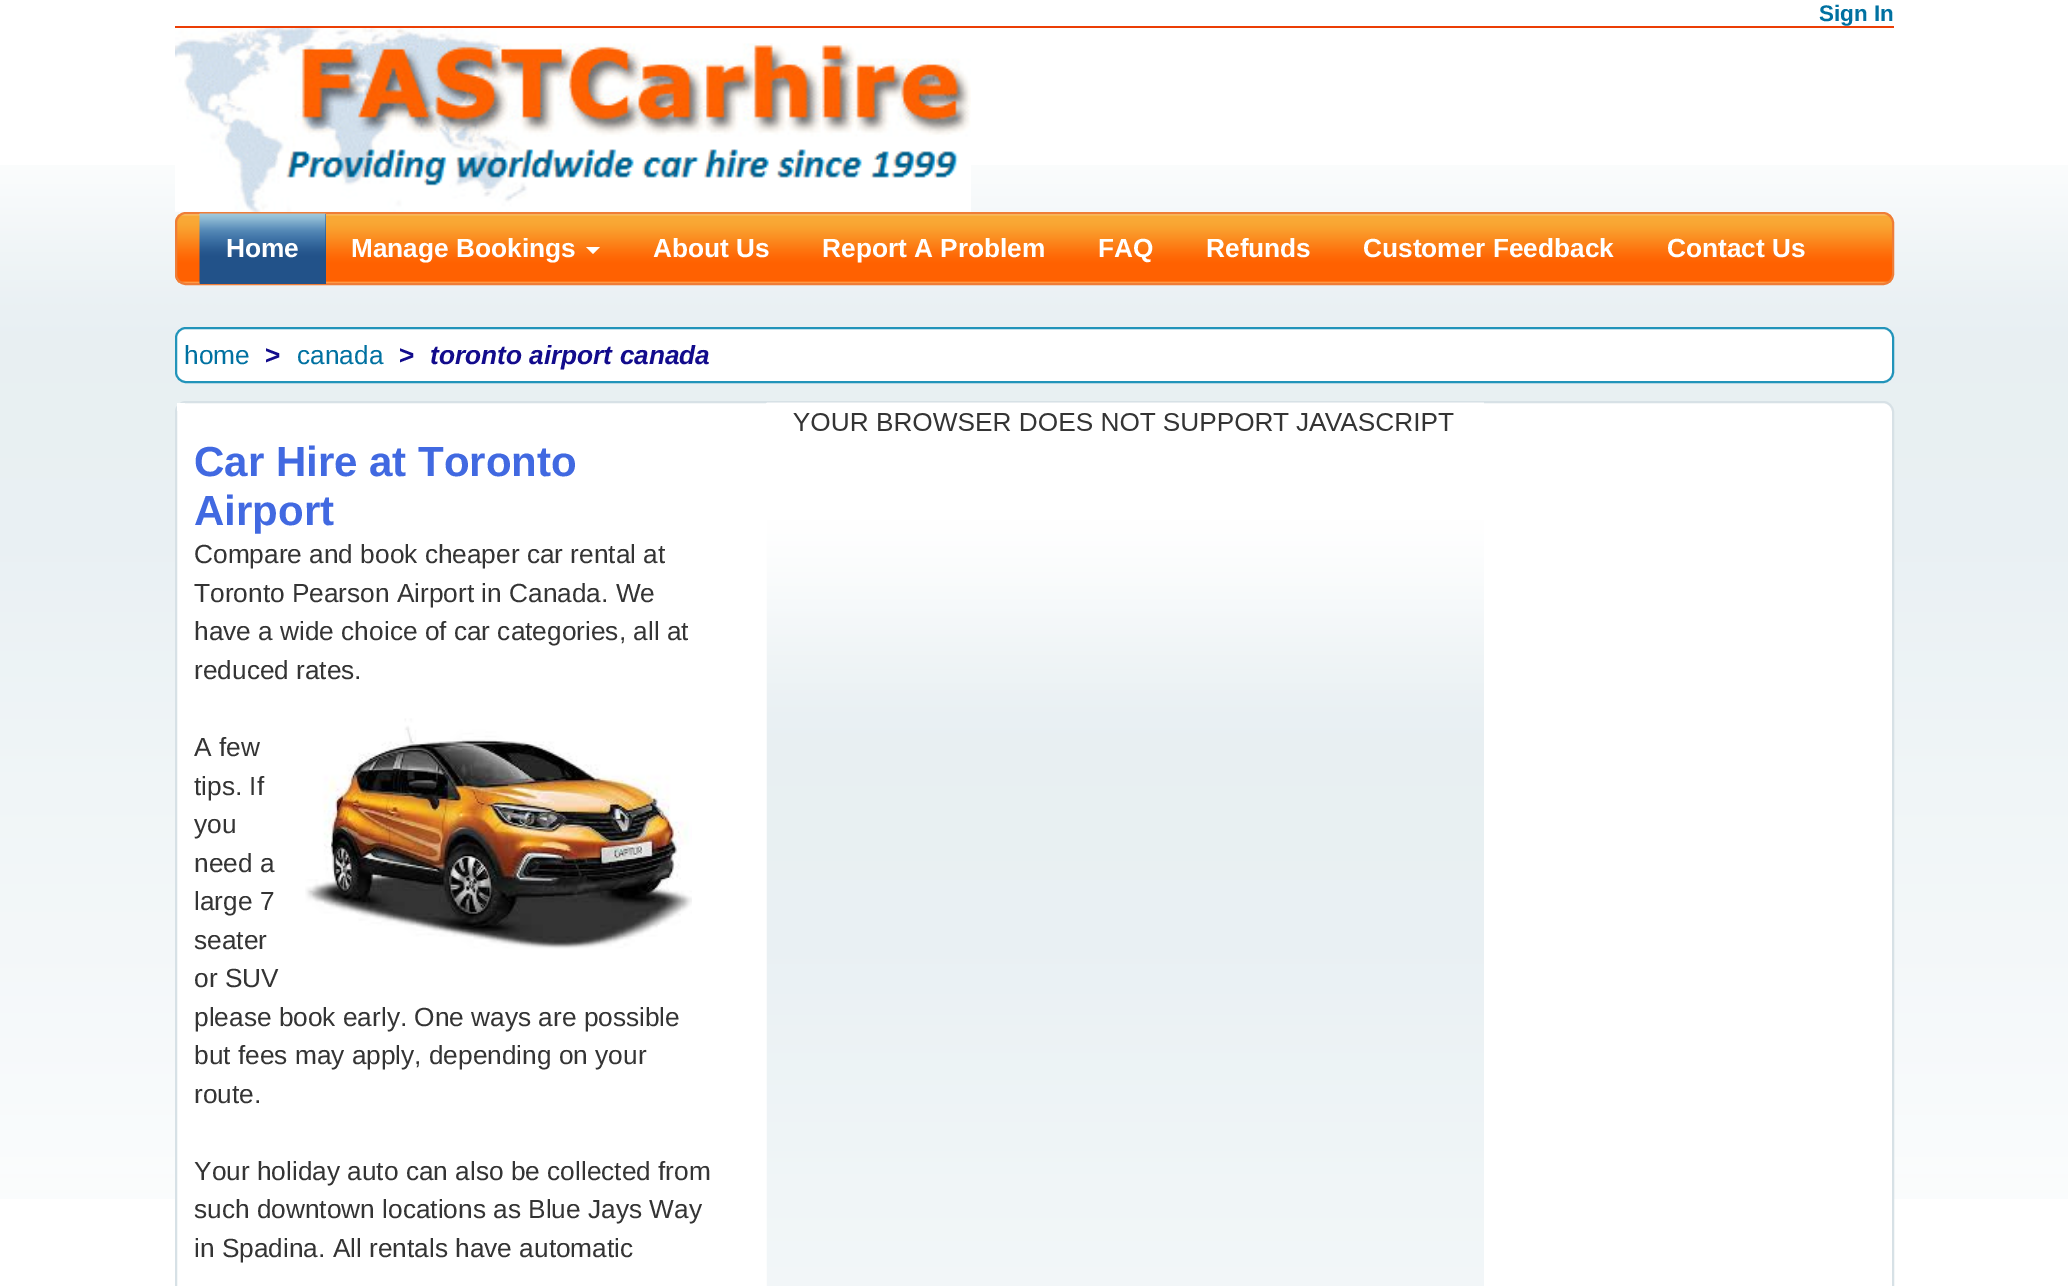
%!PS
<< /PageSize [2068 1286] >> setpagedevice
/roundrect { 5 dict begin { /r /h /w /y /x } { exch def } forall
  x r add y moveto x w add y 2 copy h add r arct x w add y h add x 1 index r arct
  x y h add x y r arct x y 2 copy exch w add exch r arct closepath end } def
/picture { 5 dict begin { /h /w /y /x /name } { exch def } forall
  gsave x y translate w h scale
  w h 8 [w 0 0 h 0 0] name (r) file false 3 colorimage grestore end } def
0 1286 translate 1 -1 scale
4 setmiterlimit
1 setgray
0 0 2068 1286 rectfill
(img1.rgb) 0 165 2068 1034 picture
0.922 0.243 0.02 setrgbcolor
175 26 1719 2 rectfill
/LiberationSans-Bold [22.5 0 0 -22.5 0 0] selectfont
0 0.443 0.631 setrgbcolor
1819 21 moveto (Sign In) show
(img2.rgb) 175 28 796 184 picture
(img3.rgb) 175 213 1719 71 picture
0.937 0.49 0.216 setrgbcolor
2 setlinewidth
176 213 1717 71 10 roundrect stroke
0.133 0.322 0.537 setrgbcolor
200 214 126 70 rectfill
(img4.rgb) 199 213 127 71 picture
/LiberationSans-Bold [26.25 0 0 -26.25 0 0] selectfont
1 setgray
226 257 moveto (Home) show
351 257 moveto (Manage Bookings) show
newpath 586 247 moveto 600 247 lineto 593 254 lineto closepath fill
653 257 moveto (About Us) show
822 257 moveto (Report A Problem) show
1098 257 moveto (FAQ) show
1206 257 moveto (Refunds) show
1363 257 moveto (Customer Feedback) show
1667 257 moveto (Contact Us) show
176 328 1717 54 10 roundrect gsave fill grestore
0.133 0.58 0.729 setrgbcolor
stroke
/LiberationSans-Regular [26.25 0 0 -26.25 0 0] selectfont
0 0.443 0.631 setrgbcolor
184 364 moveto (home) show
/LiberationSans-Bold [26.25 0 0 -26.25 0 0] selectfont
0.071 0.043 0.549 setrgbcolor
265 364 moveto (>) show
/LiberationSans-Regular [26.25 0 0 -26.25 0 0] selectfont
0 0.443 0.631 setrgbcolor
297 364 moveto (canada) show
/LiberationSans-Bold [26.25 0 0 -26.25 0 0] selectfont
0.071 0.043 0.549 setrgbcolor
399 364 moveto (>) show
/LiberationSans-BoldItalic [26.25 0 0 -26.25 0 0] selectfont
430 364 moveto (toronto airport canada) show
1 setgray
176 402 1717 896 10 roundrect gsave fill grestore
0.843 0.882 0.902 setrgbcolor
stroke
1 setgray
177 403 8 8 rectfill
/LiberationSans-Bold [42 0 0 -42 0 0] selectfont
0.255 0.412 0.882 setrgbcolor
194 476 moveto (Car Hire at Toronto) show
194 525 moveto (Airport) show
/LiberationSans-Regular [26.25 0 0 -26.25 0 0] selectfont
0.204 setgray
194 563 moveto (Compare and book cheaper car rental at) show
194 602 moveto (Toronto Pearson Airport in Canada. We) show
194 640 moveto (have a wide choice of car categories, all at) show
194 679 moveto (reduced rates.) show
194 756 moveto (A few) show
(img5.rgb) 305 718 387 231 picture
194 795 moveto (tips. If) show
194 833 moveto (you) show
194 872 moveto (need a) show
194 910 moveto (large 7) show
194 949 moveto (seater) show
194 987 moveto (or SUV) show
194 1026 moveto (please book early. One ways are possible) show
194 1064 moveto (but fees may apply, depending on your) show
194 1103 moveto (route.) show
194 1180 moveto (Your holiday auto can also be collected from) show
194 1218 moveto (such downtown locations as Blue Jays Way) show
194 1257 moveto (in Spadina. All rentals have automatic) show
(img6.rgb) 766 402 718 884 picture
showpage
